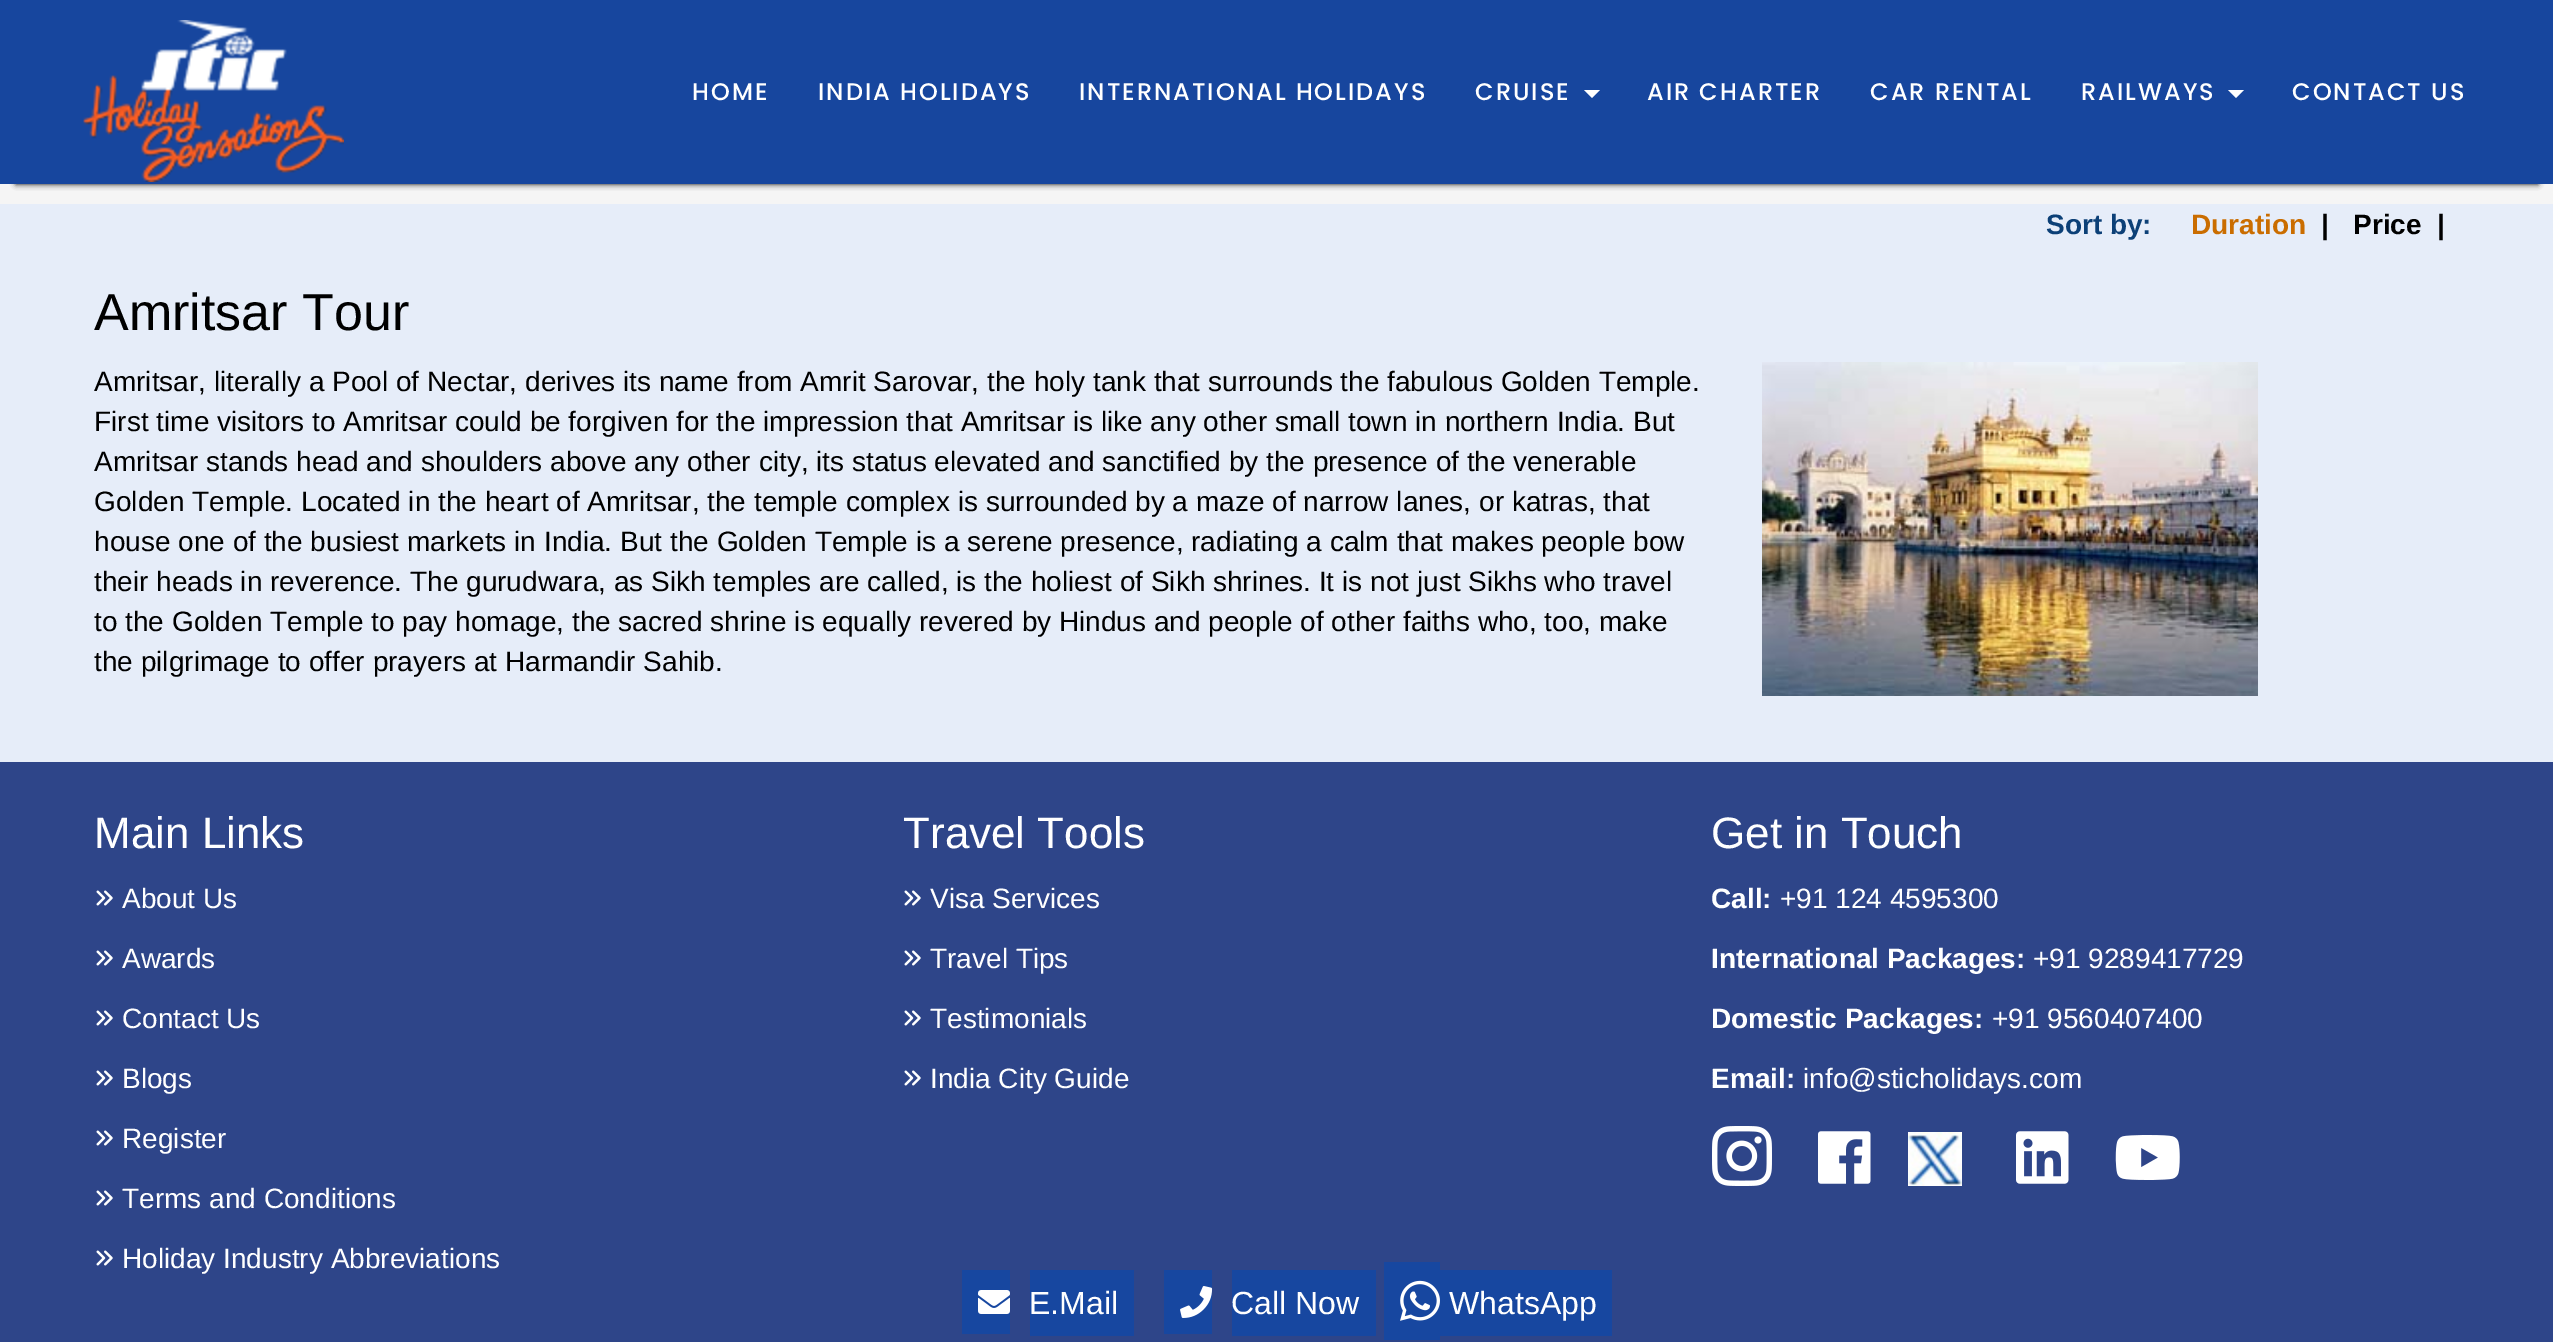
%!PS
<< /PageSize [2553 1342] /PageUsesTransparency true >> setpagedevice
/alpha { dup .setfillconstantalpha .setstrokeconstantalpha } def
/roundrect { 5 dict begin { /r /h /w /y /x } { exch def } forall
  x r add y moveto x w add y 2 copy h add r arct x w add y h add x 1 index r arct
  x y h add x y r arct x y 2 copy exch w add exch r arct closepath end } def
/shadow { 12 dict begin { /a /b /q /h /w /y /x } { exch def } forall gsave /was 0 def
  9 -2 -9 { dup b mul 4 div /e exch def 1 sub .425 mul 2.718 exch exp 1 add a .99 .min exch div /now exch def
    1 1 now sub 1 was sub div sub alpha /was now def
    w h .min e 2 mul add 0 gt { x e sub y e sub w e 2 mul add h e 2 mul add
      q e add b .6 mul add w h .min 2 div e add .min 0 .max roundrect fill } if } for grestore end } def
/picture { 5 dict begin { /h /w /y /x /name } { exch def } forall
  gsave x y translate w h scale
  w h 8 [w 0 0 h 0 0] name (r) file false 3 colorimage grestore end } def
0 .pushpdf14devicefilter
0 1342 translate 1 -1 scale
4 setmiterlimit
0.902 0.929 0.976 setrgbcolor
0 0 2553 1342 rectfill
0.961 setgray
0 184 2553 20 rectfill
0 setgray
16 32 2522 152 0 3 1 shadow
0.09 0.275 0.62 setrgbcolor
0 0 2553 184 rectfill
(img1.rgb) 83 20 261 162 picture
/Poppins-Medium [24 0 0 -24 0 0] selectfont
1 setgray
692 100 moveto 2 0 (HOME) ashow
818 100 moveto 2 0 (INDIA HOLIDAYS) ashow
1079 100 moveto 2 0 (INTERNATIONAL HOLIDAYS) ashow
1475 100 moveto 2 0 (CRUISE) ashow
newpath 1584 90 moveto 1600 90 lineto 1592 98 lineto closepath fill
1647 100 moveto 2 0 (AIR CHARTER) ashow
1870 100 moveto 2 0 (CAR RENTAL) ashow
2081 100 moveto 2 0 (RAILWAYS) ashow
newpath 2228 90 moveto 2244 90 lineto 2236 98 lineto closepath fill
2292 100 moveto 2 0 (CONTACT US) ashow
/LiberationSans-Bold [28 0 0 -28 0 0] selectfont
0.047 0.251 0.467 setrgbcolor
2046 234 moveto (Sort by:) show
0.792 0.427 0 setrgbcolor
2191 234 moveto (Duration) show
0 setgray
2321 234 moveto (|) show
2353 234 moveto (Price  |) show
/LiberationSans-Regular [52 0 0 -52 0 0] selectfont
94 330 moveto (Amritsar Tour) show
/LiberationSans-Regular [28 0 0 -28 0 0] selectfont
94 391 moveto (Amritsar, literally a Pool of Nectar, derives its name from Amrit Sarovar, the holy tank that surrounds the fabulous Golden Temple.) show
94 431 moveto (First time visitors to Amritsar could be forgiven for the impression that Amritsar is like any other small town in northern India. But) show
94 471 moveto (Amritsar stands head and shoulders above any other city, its status elevated and sanctified by the presence of the venerable) show
94 511 moveto (Golden Temple. Located in the heart of Amritsar, the temple complex is surrounded by a maze of narrow lanes, or katras, that) show
94 551 moveto (house one of the busiest markets in India. But the Golden Temple is a serene presence, radiating a calm that makes people bow) show
94 591 moveto (their heads in reverence. The gurudwara, as Sikh temples are called, is the holiest of Sikh shrines. It is not just Sikhs who travel) show
94 631 moveto (to the Golden Temple to pay homage, the sacred shrine is equally revered by Hindus and people of other faiths who, too, make) show
94 671 moveto (the pilgrimage to offer prayers at Harmandir Sahib.) show
(img2.rgb) 1762 362 496 334 picture
0.18 0.271 0.537 setrgbcolor
0 762 2553 580 rectfill
/LiberationSans-Regular [44 0 0 -44 0 0] selectfont
1 setgray
94 848 moveto (Main Links) show
(img3.rgb) 96 890 17 16 picture
/LiberationSans-Regular [28 0 0 -28 0 0] selectfont
122 908 moveto (About Us) show
(img3.rgb) 96 950 17 16 picture
122 968 moveto (Awards) show
(img3.rgb) 96 1010 17 16 picture
122 1028 moveto (Contact Us) show
(img3.rgb) 96 1070 17 16 picture
122 1088 moveto (Blogs) show
(img3.rgb) 96 1130 17 16 picture
122 1148 moveto (Register) show
(img3.rgb) 96 1190 17 16 picture
122 1208 moveto (Terms and Conditions) show
(img3.rgb) 96 1250 17 16 picture
122 1268 moveto (Holiday Industry Abbreviations) show
/LiberationSans-Regular [44 0 0 -44 0 0] selectfont
903 848 moveto (Travel Tools) show
(img3.rgb) 904 890 17 16 picture
/LiberationSans-Regular [28 0 0 -28 0 0] selectfont
930 908 moveto (Visa Services) show
(img3.rgb) 904 950 17 16 picture
930 968 moveto (Travel Tips) show
(img3.rgb) 904 1010 17 16 picture
930 1028 moveto (Testimonials) show
(img3.rgb) 904 1070 17 16 picture
930 1088 moveto (India City Guide) show
/LiberationSans-Regular [44 0 0 -44 0 0] selectfont
1711 848 moveto (Get in Touch) show
/LiberationSans-Bold [28 0 0 -28 0 0] selectfont
1711 908 moveto (Call:) show
/LiberationSans-Regular [28 0 0 -28 0 0] selectfont
1780 908 moveto (+91 124 4595300) show
/LiberationSans-Bold [28 0 0 -28 0 0] selectfont
1711 968 moveto (International Packages:) show
/LiberationSans-Regular [28 0 0 -28 0 0] selectfont
2033 968 moveto (+91 9289417729) show
/LiberationSans-Bold [28 0 0 -28 0 0] selectfont
1711 1028 moveto (Domestic Packages:) show
/LiberationSans-Regular [28 0 0 -28 0 0] selectfont
1992 1028 moveto (+91 9560407400) show
/LiberationSans-Bold [28 0 0 -28 0 0] selectfont
1711 1088 moveto (Email:) show
/LiberationSans-Regular [28 0 0 -28 0 0] selectfont
1803 1088 moveto (info@sticholidays.com) show
(img4.rgb) 1712 1126 60 60 picture
(img5.rgb) 1818 1131 53 53 picture
(img6.rgb) 1908 1132 54 54 picture
(img7.rgb) 2016 1131 53 53 picture
(img8.rgb) 2115 1135 65 45 picture
0.09 0.278 0.627 setrgbcolor
962 1270 48 64 rectfill
1030 1270 104 66 rectfill
(img9.rgb) 978 1290 32 24 picture
/LiberationSans-Regular [32 0 0 -32 0 0] selectfont
1 setgray
1029 1314 moveto (E.Mail) show
0.09 0.278 0.627 setrgbcolor
1164 1270 48 64 rectfill
1232 1270 144 66 rectfill
(img10.rgb) 1180 1286 33 32 picture
1 setgray
1231 1314 moveto (Call Now) show
0.09 0.278 0.627 setrgbcolor
1384 1262 56 78 rectfill
(img11.rgb) 1400 1280 40 41 picture
1440 1270 172 66 rectfill
1 setgray
1449 1314 moveto (WhatsApp) show
.poppdf14devicefilter showpage
